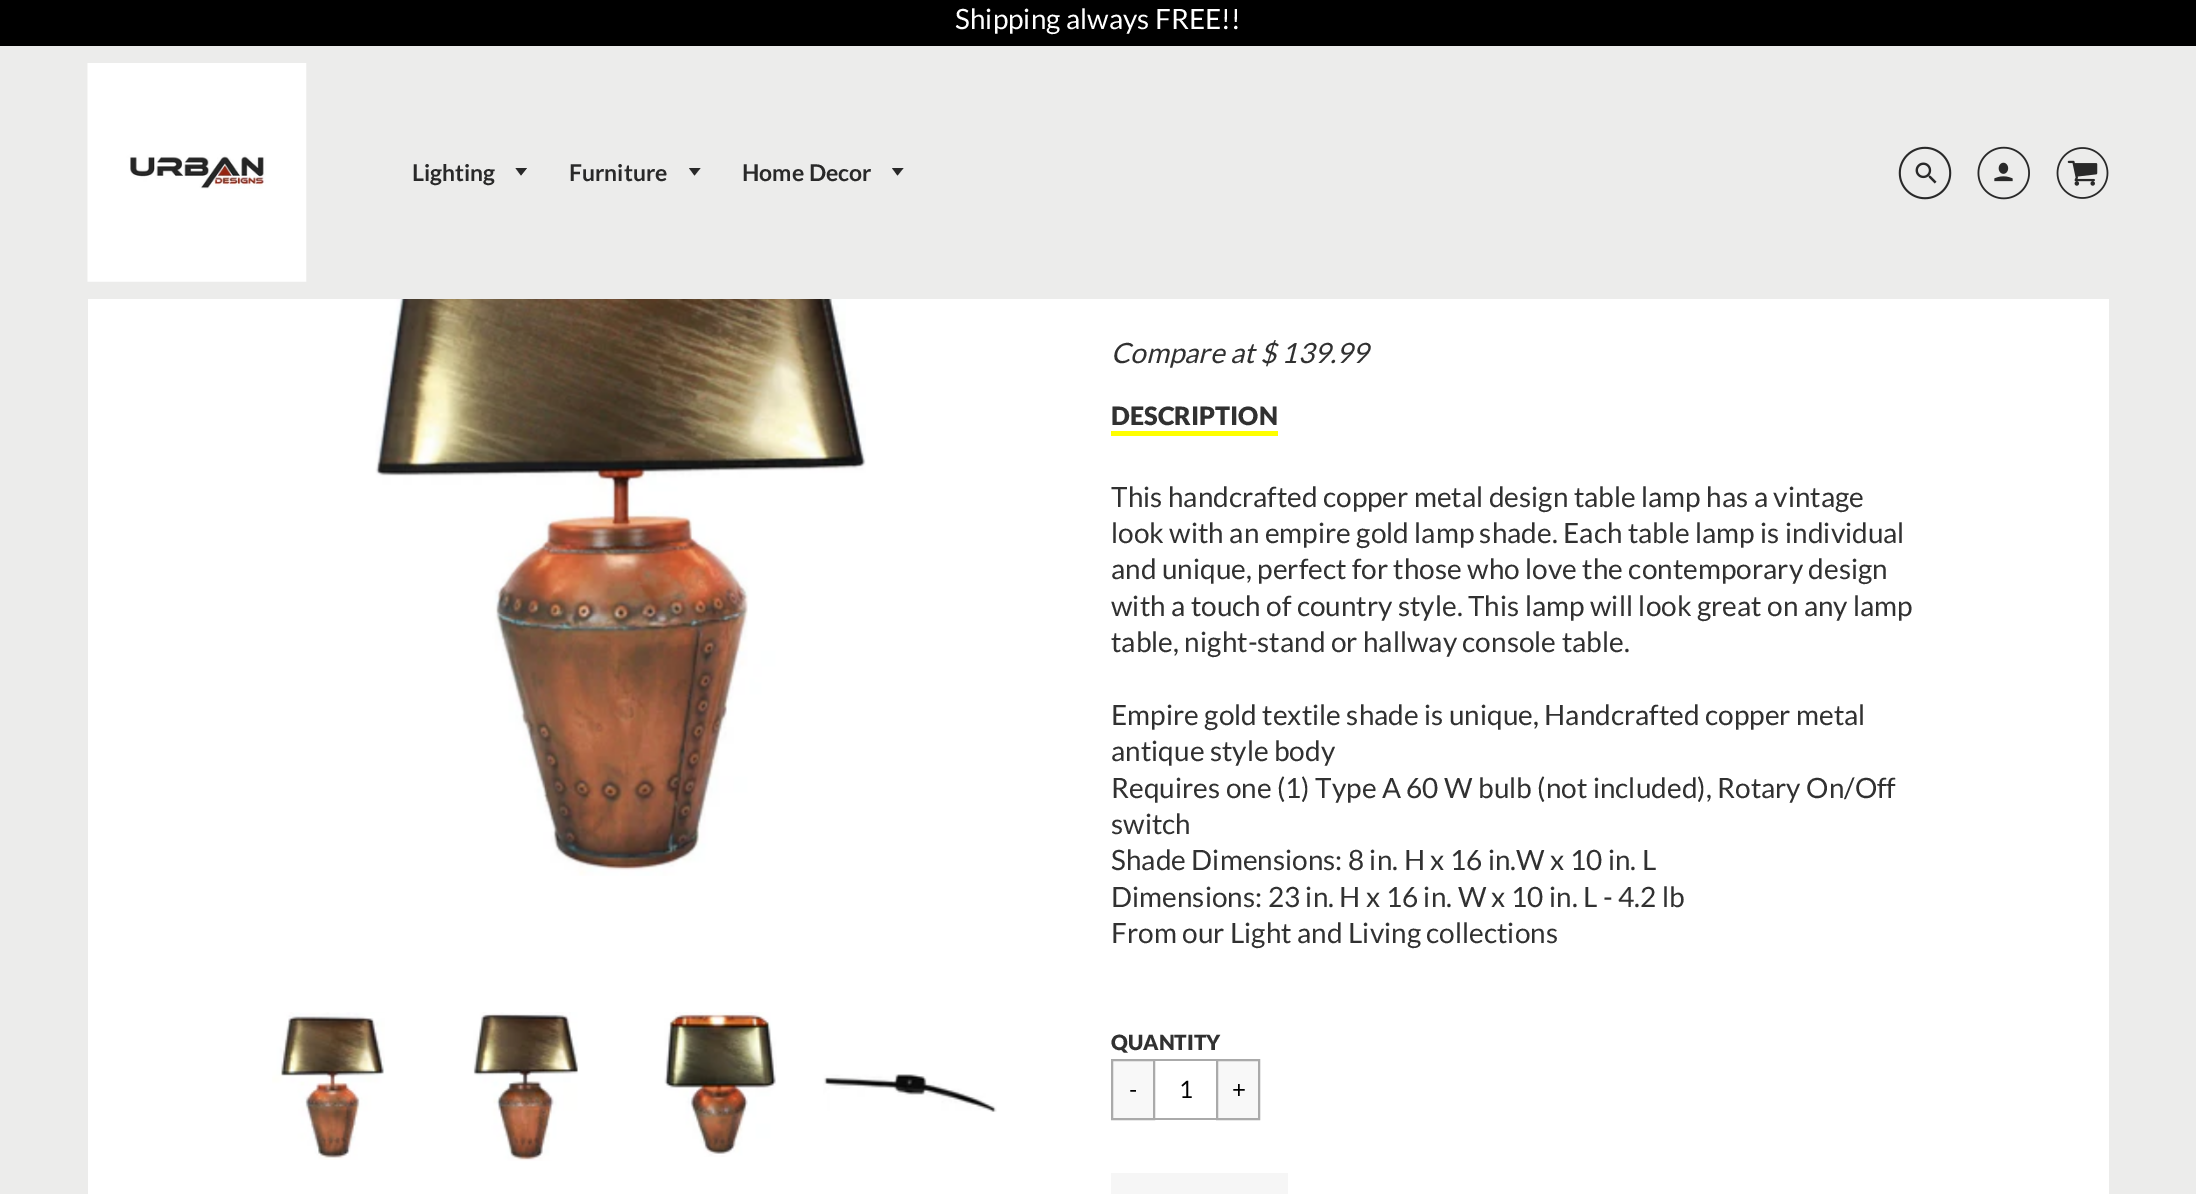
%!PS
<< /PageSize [2196 1194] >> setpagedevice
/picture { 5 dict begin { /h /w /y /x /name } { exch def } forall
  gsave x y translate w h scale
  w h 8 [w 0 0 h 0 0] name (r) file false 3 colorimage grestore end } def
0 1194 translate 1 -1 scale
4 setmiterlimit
0.925 0.925 0.922 setrgbcolor
0 0 2196 1194 rectfill
0 setgray
0 0 2196 46 rectfill
/Lato-Regular [28 0 0 -28 0 0] selectfont
1 setgray
955 29 moveto (Shipping always FREE!!) show
(img1.rgb) 87 63 220 219 picture
/Lato-Bold [23 0 0 -23 0 0] selectfont
0.161 setgray
412 181 moveto (Lighting) show
newpath 515.5 168 moveto 521 175.5 lineto 527 168 lineto closepath fill
569 181 moveto (Furniture) show
newpath 689 168 moveto 694.5 175.5 lineto 700.5 168 lineto closepath fill
742 181 moveto (Home Decor) show
newpath 892 168 moveto 897.5 175.5 lineto 903.5 168 lineto closepath fill
(img2.rgb) 1898 146 54 54 picture
(img3.rgb) 1977 146 53 54 picture
(img4.rgb) 2056 147 53 52 picture
1 setgray
88 299 2021 895 rectfill
(img5.rgb) 375 299 491 577 picture
(img6.rgb) 272 1012 113 148 picture
(img7.rgb) 473 1012 106 149 picture
(img8.rgb) 664 1012 113 145 picture
(img9.rgb) 823 1074 174 38 picture
/Lato-Italic [28 0 0 -28 0 0] selectfont
0.192 setgray
1111 363 moveto (Compare at $ 139.99) show
/Lato-Black [25.25 0 0 -25.25 0 0] selectfont
1111 425 moveto (DESCRIPTION) show
1 1 0 setrgbcolor
1111 431 167 5 rectfill
/Lato-Regular [28 0 0 -28 0 0] selectfont
0.192 setgray
1111 507 moveto (This handcrafted copper metal design table lamp has a vintage) show
1111 543 moveto (look with an empire gold lamp shade. Each table lamp is individual) show
1111 579 moveto (and unique, perfect for those who love the contemporary design) show
1111 616 moveto (with a touch of country style. This lamp will look great on any lamp) show
1111 652 moveto (table, night-stand or hallway console table.) show
1111 725 moveto (Empire gold textile shade is unique, Handcrafted copper metal) show
1111 761 moveto (antique style body) show
1111 798 moveto (Requires one \(1\) Type A 60 W bulb \(not included\), Rotary On/Off) show
1111 834 moveto (switch) show
1111 870 moveto (Shade Dimensions: 8 in. H x 16 in.W x 10 in. L) show
1111 907 moveto (Dimensions: 23 in. H x 16 in. W x 10 in. L - 4.2 lb) show
1111 943 moveto (From our Light and Living collections) show
/Lato-Black [21 0 0 -21 0 0] selectfont
1111 1050 moveto (QUANTITY) show
0.667 setgray
1152 1059 70 2 rectfill
1152 1118 70 2 rectfill
0.973 setgray
newpath 1112 1060 moveto 1154 1060 lineto 1154 1119 lineto 1112 1119 lineto closepath gsave fill grestore
0.667 setgray
2 setlinewidth
stroke
/Lato-Regular [24 0 0 -24 0 0] selectfont
0 setgray
1129 1098 moveto (-) show
1179 1098 moveto (1) show
0.973 setgray
newpath 1217 1060 moveto 1259 1060 lineto 1259 1119 lineto 1217 1119 lineto closepath gsave fill grestore
0.667 setgray
stroke
0 setgray
1232 1098 moveto (+) show
0.965 setgray
1111 1173 177 21 rectfill
showpage
